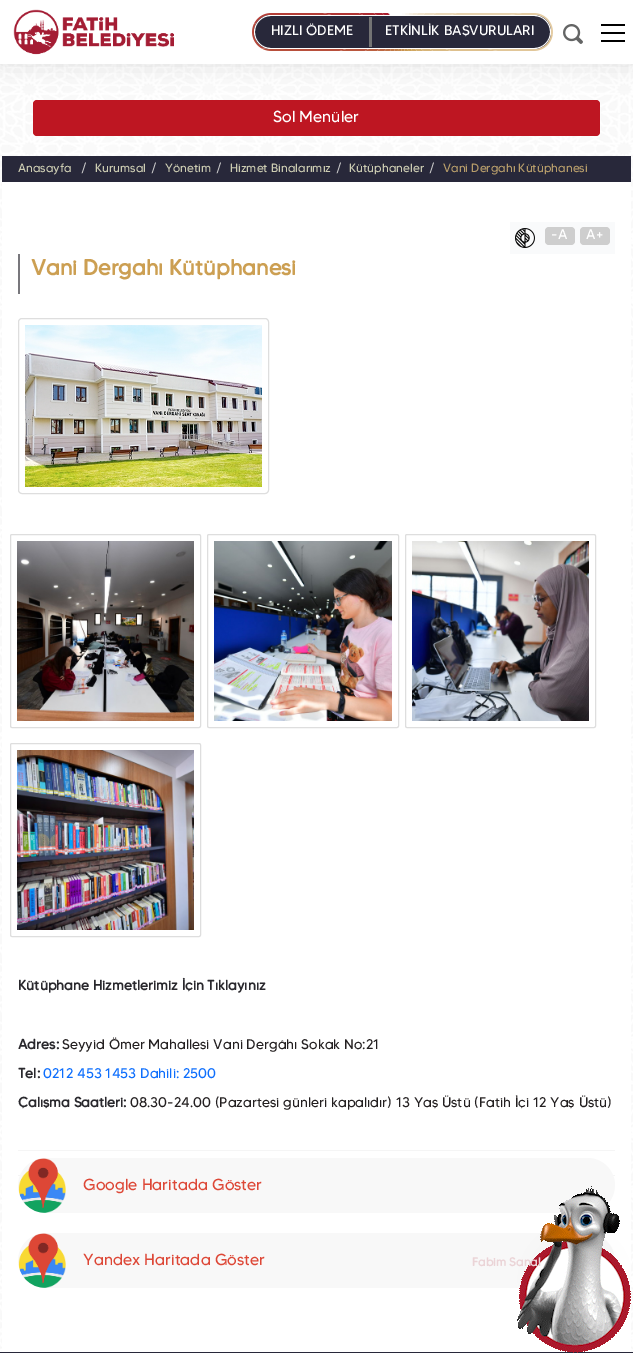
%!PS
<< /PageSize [633 1353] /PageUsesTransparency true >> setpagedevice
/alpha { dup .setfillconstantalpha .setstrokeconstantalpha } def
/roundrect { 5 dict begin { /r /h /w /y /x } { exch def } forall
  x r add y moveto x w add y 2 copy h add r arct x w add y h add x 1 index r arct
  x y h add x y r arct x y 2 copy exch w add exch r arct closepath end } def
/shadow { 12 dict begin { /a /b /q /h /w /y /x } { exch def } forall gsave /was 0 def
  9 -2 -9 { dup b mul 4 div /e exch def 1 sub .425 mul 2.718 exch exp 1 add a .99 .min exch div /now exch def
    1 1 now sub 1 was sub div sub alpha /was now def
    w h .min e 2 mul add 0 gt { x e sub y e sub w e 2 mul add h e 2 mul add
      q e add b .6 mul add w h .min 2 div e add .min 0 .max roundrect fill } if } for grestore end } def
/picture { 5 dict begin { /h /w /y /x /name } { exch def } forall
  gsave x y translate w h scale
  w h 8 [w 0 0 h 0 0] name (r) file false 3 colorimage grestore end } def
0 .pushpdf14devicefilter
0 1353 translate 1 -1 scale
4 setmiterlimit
1 setgray
0 0 633 1353 rectfill
(img1.rgb) 0 64 633 1288 picture
0.745 0.086 0.133 setrgbcolor
33 100 567 36 4 roundrect fill
0 setgray
0 0 633 64 0 12 0.11 shadow
1 setgray
0 0 633 64 rectfill
(img2.rgb) 13 9 161 46 picture
(img3.rgb) 252 13 301 38 picture
0.157 0.157 0.227 setrgbcolor
newpath 271 15 moveto 369 15 lineto 369 49 lineto 271 49 lineto 261.5 49 254 41.5 254 32 curveto 254 22.5 261.5 15 271 15 curveto closepath fill
1 setgray
newpath 271 15 moveto 369 15 lineto 369 49 lineto 271 49 lineto 262 49 254 41 254 32 curveto 254 23 262 15 271 15 curveto closepath 271 16 moveto 369 16 lineto 369 48 lineto 271 48 lineto 262 48 255 41 255 32 curveto 255 23 262 16 271 16 curveto closepath eofill
/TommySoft-Regular [14 0 0 -14 0 0] selectfont
271 35 moveto (HIZLI ÖDEME) show
0.157 0.157 0.227 setrgbcolor
newpath 369 15 moveto 534 15 lineto 543.5 15 551 22.5 551 32 curveto 551 41.5 543.5 49 534 49 curveto 369 49 lineto closepath fill
1 setgray
newpath 369 15 moveto 534 15 lineto 543 15 551 23 551 32 curveto 551 41 543 49 534 49 curveto 369 49 lineto closepath 369 16 moveto 534 16 lineto 543 16 550 23 550 32 curveto 550 41 543 48 534 48 curveto 369 48 lineto closepath eofill
0.455 setgray
369 17 3 30 rectfill
1 setgray
385 35 moveto (ETKİNLİK BAŞVURULARI) show
(img4.rgb) 563 24 20 20 picture
0 setgray
601 24 24 2 rectfill
601 40 24 2 rectfill
601 32 24 2 rectfill
/TommySoft-Regular [16 0 0 -16 0 0] selectfont
1 setgray
273 122 moveto (Sol Menüler) show
0.157 0.157 0.227 setrgbcolor
2 156 629 26 rectfill
/TommySoft-Regular [12 0 0 -12 0 0] selectfont
0.8 0.8 0.698 setrgbcolor
18 172 moveto (Anasayfa) show
0.8 setgray
81 172 moveto (/) show
0.8 0.8 0.698 setrgbcolor
95 172 moveto (Kurumsal) show
0.8 setgray
151 172 moveto (/) show
0.8 0.8 0.698 setrgbcolor
165 172 moveto (Yönetim) show
0.8 setgray
216 172 moveto (/) show
0.8 0.8 0.698 setrgbcolor
230 172 moveto (Hizmet Binalarımız) show
0.8 setgray
336 172 moveto (/) show
0.8 0.8 0.698 setrgbcolor
349 172 moveto (Kütüphaneler) show
0.8 setgray
429 172 moveto (/) show
0.718 0.616 0.416 setrgbcolor
443 172 moveto (Vani Dergahı Kütüphanesi) show
1 setgray
2 182 629 1170 rectfill
0.976 0.98 0.984 setrgbcolor
510 222 105 32 rectfill
(img5.rgb) 515 228 20 20 picture
0.808 setgray
545 227 30 18 4 roundrect fill
/TommySoft-Regular [14 0 0 -14 0 0] selectfont
1 setgray
551 239 moveto 1 0 (-A) ashow
0.808 setgray
580 227 30 18 4 roundrect fill
1 setgray
586 239 moveto 1 0 (A+) ashow
0.471 0.467 0.486 setrgbcolor
18 254 2 40 rectfill
/TommySoft-Bold [22 0 0 -22 0 0] selectfont
0.8 0.624 0.322 setrgbcolor
31 275 moveto (Vani Dergahı Kütüphanesi) show
0.871 setgray
18.5 318.5 250 175 3.5 roundrect stroke
(img6.rgb) 25 325 237 162 picture
10.5 534.5 190 193 1.5 roundrect stroke
(img7.rgb) 17 541 177 180 picture
207.5 534.5 191 193 1.5 roundrect stroke
(img8.rgb) 214 541 178 180 picture
405.5 534.5 190 193 1.5 roundrect stroke
(img9.rgb) 412 541 177 180 picture
10.5 743.5 190 193 1.5 roundrect stroke
(img10.rgb) 17 750 177 180 picture
/TommySoft-Bold [14 0 0 -14 0 0] selectfont
0.161 0.157 0.176 setrgbcolor
18 990 moveto (Kütüphane Hizmetlerimiz İçin Tıklayınız) show
18 1049 moveto (Adres:) show
/TommySoft-Regular [14 0 0 -14 0 0] selectfont
0.137 0.122 0.125 setrgbcolor
62 1049 moveto (Seyyid Ömer Mahallesi Vani Dergâhı Sokak No:21) show
/TommySoft-Bold [14 0 0 -14 0 0] selectfont
0.161 0.157 0.176 setrgbcolor
18 1078 moveto (Tel:) show
/TommySoft-Regular [14 0 0 -14 0 0] selectfont
0.051 0.431 0.992 setrgbcolor
43 1078 moveto (0212 453 1453 Dahili: 2500) show
/TommySoft-Bold [14 0 0 -14 0 0] selectfont
0.161 0.157 0.176 setrgbcolor
18 1107 moveto (Çalışma Saatleri:) show
/TommySoft-Regular [14 0 0 -14 0 0] selectfont
0.137 0.122 0.125 setrgbcolor
130 1107 moveto (08.30-24.00 \(Pazartesi günleri kapalıdır\) 13 Yaş Üstü \(Fatih İçi 12 Yaş Üstü\)) show
0.961 setgray
18 1150 597 1 rectfill
18 1175 597 1 rectfill
0.973 setgray
18 1158 597 55 27.5 roundrect fill
(img11.rgb) 18 1158 48 55 picture
/TommySoft-Regular [16 0 0 -16 0 0] selectfont
0.867 0.278 0.212 setrgbcolor
83 1190 moveto (Google Haritada Göster) show
0.973 setgray
18 1233 597 55 27.5 roundrect fill
(img12.rgb) 18 1233 48 55 picture
0.867 0.278 0.212 setrgbcolor
83 1265 moveto (Yandex Haritada Göster) show
0.157 0.157 0.227 setrgbcolor
0 1352 633 1 rectfill
(img13.rgb) 517 1186 114 167 picture
/TommySoft-Bold [12 0 0 -12 0 0] selectfont
0.922 0.831 0.843 setrgbcolor
472 1266 moveto (Fabim Sanal) show
.poppdf14devicefilter showpage
